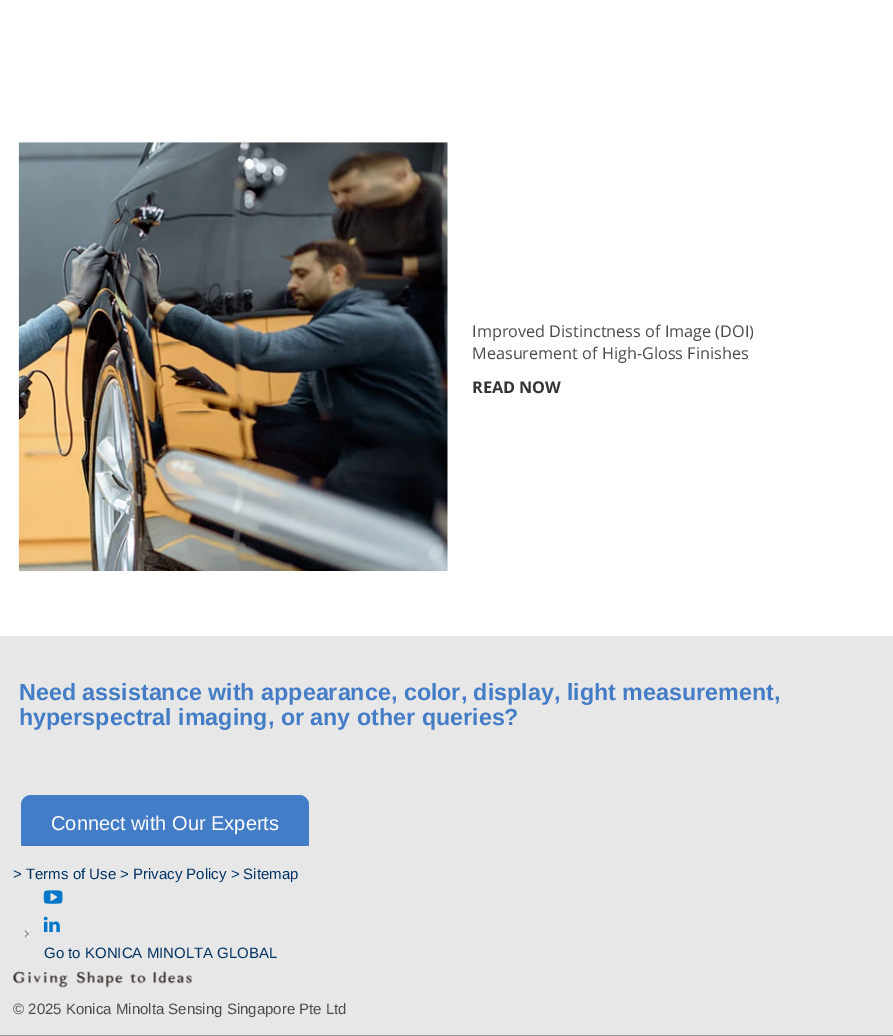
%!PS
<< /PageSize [893 1036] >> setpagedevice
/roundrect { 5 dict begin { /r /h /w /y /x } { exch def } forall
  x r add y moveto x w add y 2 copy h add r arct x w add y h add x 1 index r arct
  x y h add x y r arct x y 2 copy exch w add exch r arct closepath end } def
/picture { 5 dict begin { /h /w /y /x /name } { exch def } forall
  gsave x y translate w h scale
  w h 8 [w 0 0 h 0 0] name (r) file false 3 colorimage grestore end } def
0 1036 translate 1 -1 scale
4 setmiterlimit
1 setgray
0 0 893 1036 rectfill
(img1.rgb) 18 142 430 429 picture
/OpenSans-Regular [16.25 0 0 -16.25 0 0] selectfont
0.294 setgray
472 337 moveto (Improved Distinctness of Image \(DOI\)) show
472 359 moveto (Measurement of High-Gloss Finishes) show
/OpenSans-Bold [16.25 0 0 -16.25 0 0] selectfont
0.204 setgray
472 393 moveto (READ NOW) show
0.906 setgray
0 636 893 210 rectfill
/LiberationSans-Bold [23.3 0 0 -23.3 0 0] selectfont
0.267 0.49 0.78 setrgbcolor
19 700 moveto (Need assistance with appearance, color, display, light measurement,) show
19 725 moveto (hyperspectral imaging, or any other queries?) show
21 795 288 58 10 roundrect fill
/LiberationSans-Regular [20 0 0 -20 0 0] selectfont
1 setgray
51 830 moveto (Connect with Our Experts) show
0.906 setgray
0 846 893 189 rectfill
0.6 setgray
0 1035 893 1 rectfill
(img2.rgb) 25 930 4 8 picture
/LiberationSans-Regular [15 0 0 -15 0 0] selectfont
0 0.2 0.4 setrgbcolor
13 879 moveto (> Terms of Use > Privacy Policy > Sitemap) show
(img3.rgb) 43 890 20 14 picture
(img4.rgb) 43 916 17 17 picture
44 958 moveto (Go to KONICA MINOLTA GLOBAL) show
(img5.rgb) 13 971 179 17 picture
0.294 setgray
13 1014 moveto (© 2025 Konica Minolta Sensing Singapore Pte Ltd) show
showpage
